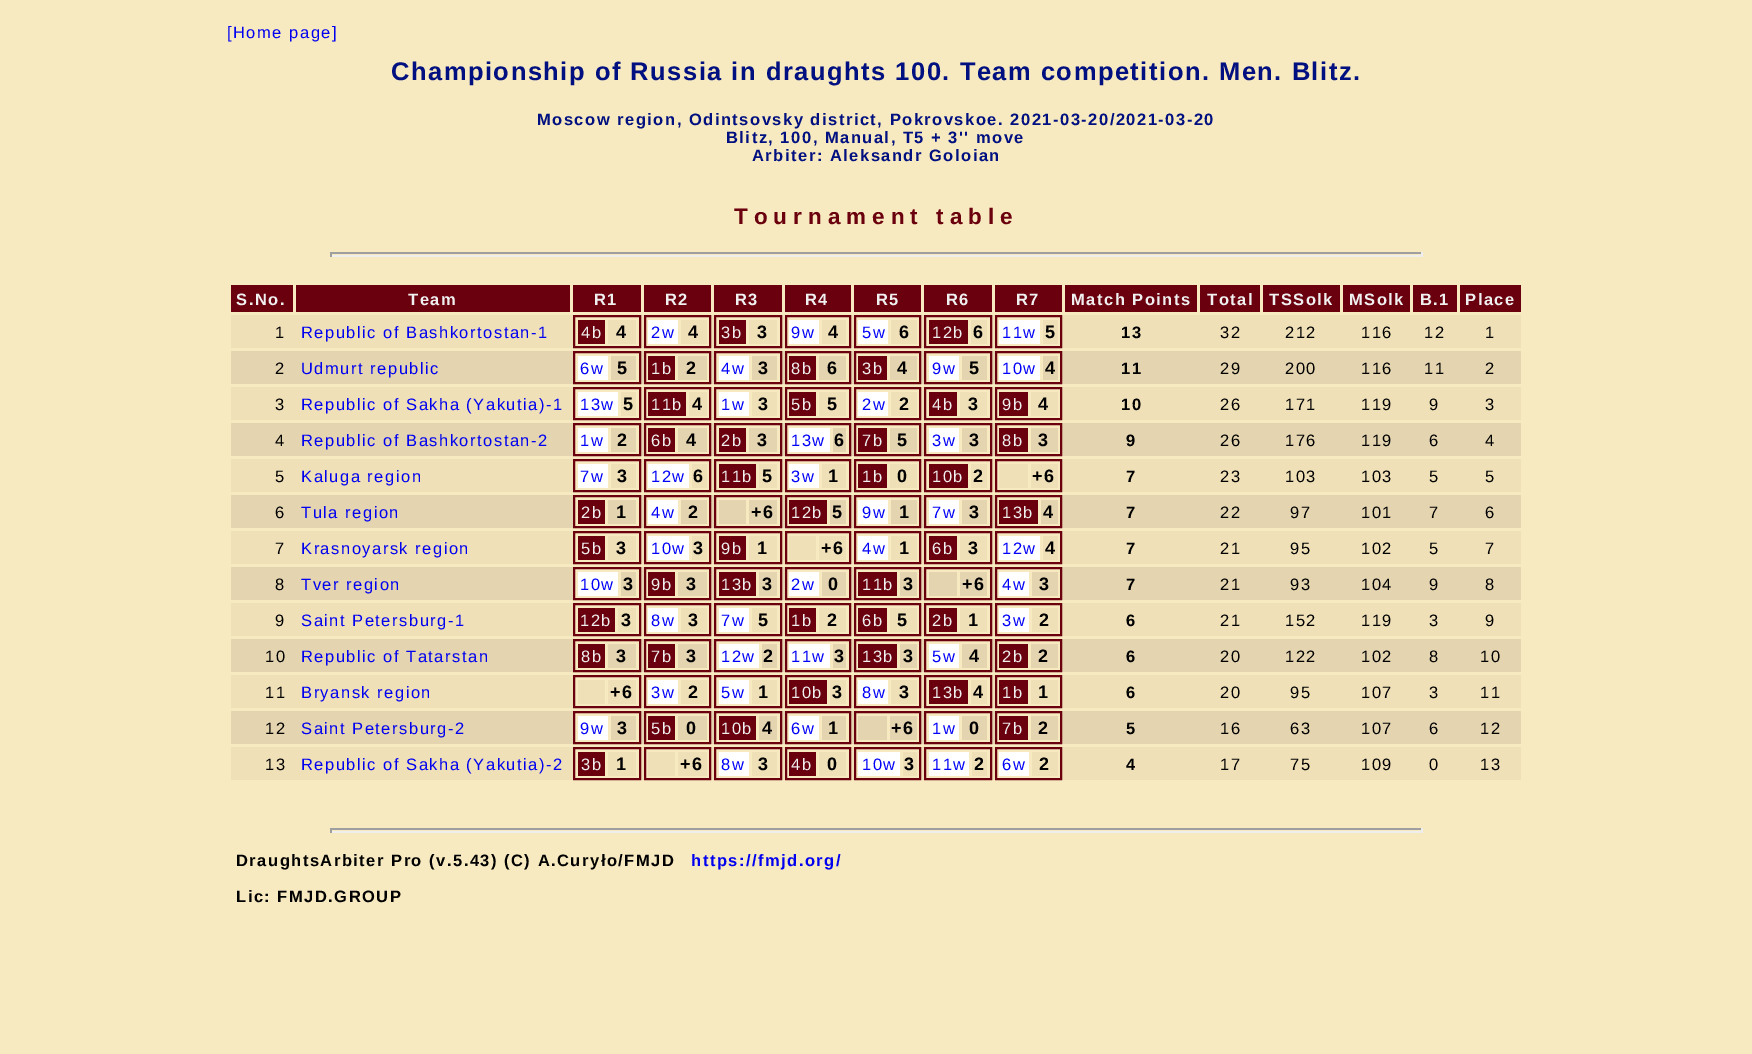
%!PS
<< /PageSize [1752 1054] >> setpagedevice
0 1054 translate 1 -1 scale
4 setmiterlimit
0.973 0.918 0.753 setrgbcolor
0 0 1752 1054 rectfill
/LiberationSans-Regular [16.5 0 0 -16.5 0 0] selectfont
0 0 0.941 setrgbcolor
227 38 moveto 1.5 0 ([Home page]) ashow
/LiberationSans-Bold [25.5 0 0 -25.5 0 0] selectfont
0 0.063 0.502 setrgbcolor
391 80 moveto 1.5 0 (Championship of Russia in draughts 100. Team competition. Men. Blitz.) ashow
/LiberationSans-Bold [16.5 0 0 -16.5 0 0] selectfont
537 125 moveto 1.5 0 (Moscow region, Odintsovsky district, Pokrovskoe. 2021-03-20/2021-03-20) ashow
726 143 moveto 1.5 0 (Blitz, 100, Manual, T5 + 3'' move) ashow
752 161 moveto 1.5 0 (Arbiter: Aleksandr Goloian) ashow
/LiberationSans-Bold [22.5 0 0 -22.5 0 0] selectfont
0.416 0 0.051 setrgbcolor
734 224 moveto 6 0 (Tournament table) ashow
0.624 setgray
330 252 1092 2 rectfill
0.933 setgray
1421 252 2 5 rectfill
330 255 1092 2 rectfill
0.624 setgray
330 252 2 5 rectfill
0.416 0 0.051 setrgbcolor
231 285 62 27 rectfill
/LiberationSans-Bold [16.5 0 0 -16.5 0 0] selectfont
0.941 setgray
236 305 moveto 1.5 0 (S.No.) ashow
0.416 0 0.051 setrgbcolor
296 285 274 27 rectfill
0.941 setgray
408 305 moveto 1.5 0 (Team) ashow
0.416 0 0.051 setrgbcolor
573 285 68 27 rectfill
0.941 setgray
594 305 moveto 1.5 0 (R1) ashow
0.416 0 0.051 setrgbcolor
644 285 67 27 rectfill
0.941 setgray
665 305 moveto 1.5 0 (R2) ashow
0.416 0 0.051 setrgbcolor
714 285 68 27 rectfill
0.941 setgray
735 305 moveto 1.5 0 (R3) ashow
0.416 0 0.051 setrgbcolor
785 285 66 27 rectfill
0.941 setgray
805 305 moveto 1.5 0 (R4) ashow
0.416 0 0.051 setrgbcolor
854 285 67 27 rectfill
0.941 setgray
876 305 moveto 1.5 0 (R5) ashow
0.416 0 0.051 setrgbcolor
924 285 68 27 rectfill
0.941 setgray
946 305 moveto 1.5 0 (R6) ashow
0.416 0 0.051 setrgbcolor
995 285 67 27 rectfill
0.941 setgray
1016 305 moveto 1.5 0 (R7) ashow
0.416 0 0.051 setrgbcolor
1065 285 132 27 rectfill
0.941 setgray
1071 305 moveto 1.5 0 (Match Points) ashow
0.416 0 0.051 setrgbcolor
1200 285 60 27 rectfill
0.941 setgray
1207 305 moveto 1.5 0 (Total) ashow
0.416 0 0.051 setrgbcolor
1263 285 77 27 rectfill
0.941 setgray
1269 305 moveto 1.5 0 (TSSolk) ashow
0.416 0 0.051 setrgbcolor
1343 285 67 27 rectfill
0.941 setgray
1349 305 moveto 1.5 0 (MSolk) ashow
0.416 0 0.051 setrgbcolor
1413 285 44 27 rectfill
0.941 setgray
1420 305 moveto 1.5 0 (B.1) ashow
0.416 0 0.051 setrgbcolor
1460 285 61 27 rectfill
0.941 setgray
1465 305 moveto 1.5 0 (Place) ashow
0.941 0.878 0.722 setrgbcolor
231 315 1290 33 rectfill
/LiberationSans-Regular [16.5 0 0 -16.5 0 0] selectfont
0 setgray
275 338 moveto 1.5 0 (1) ashow
0 0 0.941 setrgbcolor
301 338 moveto 1.5 0 (Republic of Bashkortostan-1) ashow
0.973 0.918 0.753 setrgbcolor
newpath 574 316 moveto 640 316 lineto 640 347 lineto 574 347 lineto closepath gsave fill grestore
0.416 0 0.051 setrgbcolor
2 setlinewidth
stroke
578 320 27 24 rectfill
0.941 setgray
581 338 moveto 1.5 0 (4b) ashow
0.941 0.878 0.722 setrgbcolor
608 320 28 24 rectfill
/LiberationSans-Bold [18 0 0 -18 0 0] selectfont
0 setgray
616 338 moveto 1.5 0 (4) ashow
0.973 0.918 0.753 setrgbcolor
newpath 645 316 moveto 710 316 lineto 710 347 lineto 645 347 lineto closepath gsave fill grestore
0.416 0 0.051 setrgbcolor
stroke
1 setgray
648 320 30 24 rectfill
/LiberationSans-Regular [16.5 0 0 -16.5 0 0] selectfont
0 0 0.976 setrgbcolor
651 338 moveto 1.5 0 (2w) ashow
0.941 0.878 0.722 setrgbcolor
681 320 26 24 rectfill
/LiberationSans-Bold [18 0 0 -18 0 0] selectfont
0 setgray
688 338 moveto 1.5 0 (4) ashow
0.973 0.918 0.753 setrgbcolor
newpath 715 316 moveto 781 316 lineto 781 347 lineto 715 347 lineto closepath gsave fill grestore
0.416 0 0.051 setrgbcolor
stroke
719 320 27 24 rectfill
/LiberationSans-Regular [16.5 0 0 -16.5 0 0] selectfont
0.941 setgray
721 338 moveto 1.5 0 (3b) ashow
0.941 0.878 0.722 setrgbcolor
749 320 28 24 rectfill
/LiberationSans-Bold [18 0 0 -18 0 0] selectfont
0 setgray
757 338 moveto 1.5 0 (3) ashow
0.973 0.918 0.753 setrgbcolor
newpath 786 316 moveto 850 316 lineto 850 347 lineto 786 347 lineto closepath gsave fill grestore
0.416 0 0.051 setrgbcolor
stroke
1 setgray
789 320 30 24 rectfill
/LiberationSans-Regular [16.5 0 0 -16.5 0 0] selectfont
0 0 0.976 setrgbcolor
791 338 moveto 1.5 0 (9w) ashow
0.941 0.878 0.722 setrgbcolor
822 320 24 24 rectfill
/LiberationSans-Bold [18 0 0 -18 0 0] selectfont
0 setgray
828 338 moveto 1.5 0 (4) ashow
0.973 0.918 0.753 setrgbcolor
newpath 855 316 moveto 920 316 lineto 920 347 lineto 855 347 lineto closepath gsave fill grestore
0.416 0 0.051 setrgbcolor
stroke
1 setgray
858 320 30 24 rectfill
/LiberationSans-Regular [16.5 0 0 -16.5 0 0] selectfont
0 0 0.976 setrgbcolor
862 338 moveto 1.5 0 (5w) ashow
0.941 0.878 0.722 setrgbcolor
891 320 26 24 rectfill
/LiberationSans-Bold [18 0 0 -18 0 0] selectfont
0 setgray
899 338 moveto 1.5 0 (6) ashow
0.973 0.918 0.753 setrgbcolor
newpath 925 316 moveto 991 316 lineto 991 347 lineto 925 347 lineto closepath gsave fill grestore
0.416 0 0.051 setrgbcolor
stroke
929 320 39 24 rectfill
/LiberationSans-Regular [16.5 0 0 -16.5 0 0] selectfont
0.941 setgray
932 338 moveto 1.5 0 (12b) ashow
0.941 0.878 0.722 setrgbcolor
971 320 16 24 rectfill
/LiberationSans-Bold [18 0 0 -18 0 0] selectfont
0 setgray
973 338 moveto 1.5 0 (6) ashow
0.973 0.918 0.753 setrgbcolor
newpath 996 316 moveto 1061 316 lineto 1061 347 lineto 996 347 lineto closepath gsave fill grestore
0.416 0 0.051 setrgbcolor
stroke
1 setgray
999 320 41 24 rectfill
/LiberationSans-Regular [16.5 0 0 -16.5 0 0] selectfont
0 0 0.976 setrgbcolor
1002 338 moveto 1.5 0 (11w) ashow
0.941 0.878 0.722 setrgbcolor
1043 320 15 24 rectfill
/LiberationSans-Bold [18 0 0 -18 0 0] selectfont
0 setgray
1045 338 moveto 1.5 0 (5) ashow
/LiberationSans-Bold [16.5 0 0 -16.5 0 0] selectfont
1121 338 moveto 1.5 0 (13) ashow
/LiberationSans-Regular [16.5 0 0 -16.5 0 0] selectfont
1220 338 moveto 1.5 0 (32) ashow
1285 338 moveto 1.5 0 (212) ashow
1361 338 moveto 1.5 0 (116) ashow
1424 338 moveto 1.5 0 (12) ashow
1485 338 moveto 1.5 0 (1) ashow
0.894 0.831 0.69 setrgbcolor
231 351 1290 33 rectfill
0 setgray
275 374 moveto 1.5 0 (2) ashow
0 0 0.941 setrgbcolor
301 374 moveto 1.5 0 (Udmurt republic) ashow
0.973 0.918 0.753 setrgbcolor
newpath 574 352 moveto 640 352 lineto 640 383 lineto 574 383 lineto closepath gsave fill grestore
0.416 0 0.051 setrgbcolor
stroke
1 setgray
578 356 30 24 rectfill
0 0 0.976 setrgbcolor
580 374 moveto 1.5 0 (6w) ashow
0.894 0.831 0.69 setrgbcolor
611 356 25 24 rectfill
/LiberationSans-Bold [18 0 0 -18 0 0] selectfont
0 setgray
617 374 moveto 1.5 0 (5) ashow
0.973 0.918 0.753 setrgbcolor
newpath 645 352 moveto 710 352 lineto 710 383 lineto 645 383 lineto closepath gsave fill grestore
0.416 0 0.051 setrgbcolor
stroke
648 356 27 24 rectfill
/LiberationSans-Regular [16.5 0 0 -16.5 0 0] selectfont
0.941 setgray
651 374 moveto 1.5 0 (1b) ashow
0.894 0.831 0.69 setrgbcolor
678 356 29 24 rectfill
/LiberationSans-Bold [18 0 0 -18 0 0] selectfont
0 setgray
686 374 moveto 1.5 0 (2) ashow
0.973 0.918 0.753 setrgbcolor
newpath 715 352 moveto 781 352 lineto 781 383 lineto 715 383 lineto closepath gsave fill grestore
0.416 0 0.051 setrgbcolor
stroke
1 setgray
719 356 30 24 rectfill
/LiberationSans-Regular [16.5 0 0 -16.5 0 0] selectfont
0 0 0.976 setrgbcolor
721 374 moveto 1.5 0 (4w) ashow
0.894 0.831 0.69 setrgbcolor
752 356 25 24 rectfill
/LiberationSans-Bold [18 0 0 -18 0 0] selectfont
0 setgray
758 374 moveto 1.5 0 (3) ashow
0.973 0.918 0.753 setrgbcolor
newpath 786 352 moveto 850 352 lineto 850 383 lineto 786 383 lineto closepath gsave fill grestore
0.416 0 0.051 setrgbcolor
stroke
789 356 27 24 rectfill
/LiberationSans-Regular [16.5 0 0 -16.5 0 0] selectfont
0.941 setgray
791 374 moveto 1.5 0 (8b) ashow
0.894 0.831 0.69 setrgbcolor
819 356 27 24 rectfill
/LiberationSans-Bold [18 0 0 -18 0 0] selectfont
0 setgray
827 374 moveto 1.5 0 (6) ashow
0.973 0.918 0.753 setrgbcolor
newpath 855 352 moveto 920 352 lineto 920 383 lineto 855 383 lineto closepath gsave fill grestore
0.416 0 0.051 setrgbcolor
stroke
858 356 29 24 rectfill
/LiberationSans-Regular [16.5 0 0 -16.5 0 0] selectfont
0.941 setgray
862 374 moveto 1.5 0 (3b) ashow
0.894 0.831 0.69 setrgbcolor
890 356 27 24 rectfill
/LiberationSans-Bold [18 0 0 -18 0 0] selectfont
0 setgray
897 374 moveto 1.5 0 (4) ashow
0.973 0.918 0.753 setrgbcolor
newpath 925 352 moveto 991 352 lineto 991 383 lineto 925 383 lineto closepath gsave fill grestore
0.416 0 0.051 setrgbcolor
stroke
1 setgray
929 356 30 24 rectfill
/LiberationSans-Regular [16.5 0 0 -16.5 0 0] selectfont
0 0 0.976 setrgbcolor
932 374 moveto 1.5 0 (9w) ashow
0.894 0.831 0.69 setrgbcolor
962 356 25 24 rectfill
/LiberationSans-Bold [18 0 0 -18 0 0] selectfont
0 setgray
969 374 moveto 1.5 0 (5) ashow
0.973 0.918 0.753 setrgbcolor
newpath 996 352 moveto 1061 352 lineto 1061 383 lineto 996 383 lineto closepath gsave fill grestore
0.416 0 0.051 setrgbcolor
stroke
1 setgray
999 356 41 24 rectfill
/LiberationSans-Regular [16.5 0 0 -16.5 0 0] selectfont
0 0 0.976 setrgbcolor
1002 374 moveto 1.5 0 (10w) ashow
0.894 0.831 0.69 setrgbcolor
1043 356 15 24 rectfill
/LiberationSans-Bold [18 0 0 -18 0 0] selectfont
0 setgray
1045 374 moveto 1.5 0 (4) ashow
/LiberationSans-Bold [16.5 0 0 -16.5 0 0] selectfont
1121 374 moveto 1.5 0 (11) ashow
/LiberationSans-Regular [16.5 0 0 -16.5 0 0] selectfont
1220 374 moveto 1.5 0 (29) ashow
1285 374 moveto 1.5 0 (200) ashow
1361 374 moveto 1.5 0 (116) ashow
1424 374 moveto 1.5 0 (11) ashow
1485 374 moveto 1.5 0 (2) ashow
0.941 0.878 0.722 setrgbcolor
231 387 1290 33 rectfill
0 setgray
275 410 moveto 1.5 0 (3) ashow
0 0 0.941 setrgbcolor
301 410 moveto 1.5 0 (Republic of Sakha \(Yakutia\)-1) ashow
0.973 0.918 0.753 setrgbcolor
newpath 574 388 moveto 640 388 lineto 640 419 lineto 574 419 lineto closepath gsave fill grestore
0.416 0 0.051 setrgbcolor
stroke
1 setgray
578 392 40 24 rectfill
0 0 0.976 setrgbcolor
580 410 moveto 1.5 0 (13w) ashow
0.941 0.878 0.722 setrgbcolor
621 392 15 24 rectfill
/LiberationSans-Bold [18 0 0 -18 0 0] selectfont
0 setgray
623 410 moveto 1.5 0 (5) ashow
0.973 0.918 0.753 setrgbcolor
newpath 645 388 moveto 710 388 lineto 710 419 lineto 645 419 lineto closepath gsave fill grestore
0.416 0 0.051 setrgbcolor
stroke
648 392 38 24 rectfill
/LiberationSans-Regular [16.5 0 0 -16.5 0 0] selectfont
0.941 setgray
651 410 moveto 1.5 0 (11b) ashow
0.941 0.878 0.722 setrgbcolor
689 392 18 24 rectfill
/LiberationSans-Bold [18 0 0 -18 0 0] selectfont
0 setgray
692 410 moveto 1.5 0 (4) ashow
0.973 0.918 0.753 setrgbcolor
newpath 715 388 moveto 781 388 lineto 781 419 lineto 715 419 lineto closepath gsave fill grestore
0.416 0 0.051 setrgbcolor
stroke
1 setgray
719 392 30 24 rectfill
/LiberationSans-Regular [16.5 0 0 -16.5 0 0] selectfont
0 0 0.976 setrgbcolor
721 410 moveto 1.5 0 (1w) ashow
0.941 0.878 0.722 setrgbcolor
752 392 25 24 rectfill
/LiberationSans-Bold [18 0 0 -18 0 0] selectfont
0 setgray
758 410 moveto 1.5 0 (3) ashow
0.973 0.918 0.753 setrgbcolor
newpath 786 388 moveto 850 388 lineto 850 419 lineto 786 419 lineto closepath gsave fill grestore
0.416 0 0.051 setrgbcolor
stroke
789 392 27 24 rectfill
/LiberationSans-Regular [16.5 0 0 -16.5 0 0] selectfont
0.941 setgray
791 410 moveto 1.5 0 (5b) ashow
0.941 0.878 0.722 setrgbcolor
819 392 27 24 rectfill
/LiberationSans-Bold [18 0 0 -18 0 0] selectfont
0 setgray
827 410 moveto 1.5 0 (5) ashow
0.973 0.918 0.753 setrgbcolor
newpath 855 388 moveto 920 388 lineto 920 419 lineto 855 419 lineto closepath gsave fill grestore
0.416 0 0.051 setrgbcolor
stroke
1 setgray
858 392 30 24 rectfill
/LiberationSans-Regular [16.5 0 0 -16.5 0 0] selectfont
0 0 0.976 setrgbcolor
862 410 moveto 1.5 0 (2w) ashow
0.941 0.878 0.722 setrgbcolor
891 392 26 24 rectfill
/LiberationSans-Bold [18 0 0 -18 0 0] selectfont
0 setgray
899 410 moveto 1.5 0 (2) ashow
0.973 0.918 0.753 setrgbcolor
newpath 925 388 moveto 991 388 lineto 991 419 lineto 925 419 lineto closepath gsave fill grestore
0.416 0 0.051 setrgbcolor
stroke
929 392 28 24 rectfill
/LiberationSans-Regular [16.5 0 0 -16.5 0 0] selectfont
0.941 setgray
932 410 moveto 1.5 0 (4b) ashow
0.941 0.878 0.722 setrgbcolor
960 392 27 24 rectfill
/LiberationSans-Bold [18 0 0 -18 0 0] selectfont
0 setgray
968 410 moveto 1.5 0 (3) ashow
0.973 0.918 0.753 setrgbcolor
newpath 996 388 moveto 1061 388 lineto 1061 419 lineto 996 419 lineto closepath gsave fill grestore
0.416 0 0.051 setrgbcolor
stroke
999 392 29 24 rectfill
/LiberationSans-Regular [16.5 0 0 -16.5 0 0] selectfont
0.941 setgray
1002 410 moveto 1.5 0 (9b) ashow
0.941 0.878 0.722 setrgbcolor
1031 392 27 24 rectfill
/LiberationSans-Bold [18 0 0 -18 0 0] selectfont
0 setgray
1038 410 moveto 1.5 0 (4) ashow
/LiberationSans-Bold [16.5 0 0 -16.5 0 0] selectfont
1121 410 moveto 1.5 0 (10) ashow
/LiberationSans-Regular [16.5 0 0 -16.5 0 0] selectfont
1220 410 moveto 1.5 0 (26) ashow
1285 410 moveto 1.5 0 (171) ashow
1361 410 moveto 1.5 0 (119) ashow
1429 410 moveto 1.5 0 (9) ashow
1485 410 moveto 1.5 0 (3) ashow
0.894 0.831 0.69 setrgbcolor
231 423 1290 33 rectfill
0 setgray
275 446 moveto 1.5 0 (4) ashow
0 0 0.941 setrgbcolor
301 446 moveto 1.5 0 (Republic of Bashkortostan-2) ashow
0.973 0.918 0.753 setrgbcolor
newpath 574 424 moveto 640 424 lineto 640 455 lineto 574 455 lineto closepath gsave fill grestore
0.416 0 0.051 setrgbcolor
stroke
1 setgray
578 428 30 24 rectfill
0 0 0.976 setrgbcolor
580 446 moveto 1.5 0 (1w) ashow
0.894 0.831 0.69 setrgbcolor
611 428 25 24 rectfill
/LiberationSans-Bold [18 0 0 -18 0 0] selectfont
0 setgray
617 446 moveto 1.5 0 (2) ashow
0.973 0.918 0.753 setrgbcolor
newpath 645 424 moveto 710 424 lineto 710 455 lineto 645 455 lineto closepath gsave fill grestore
0.416 0 0.051 setrgbcolor
stroke
648 428 27 24 rectfill
/LiberationSans-Regular [16.5 0 0 -16.5 0 0] selectfont
0.941 setgray
651 446 moveto 1.5 0 (6b) ashow
0.894 0.831 0.69 setrgbcolor
678 428 29 24 rectfill
/LiberationSans-Bold [18 0 0 -18 0 0] selectfont
0 setgray
686 446 moveto 1.5 0 (4) ashow
0.973 0.918 0.753 setrgbcolor
newpath 715 424 moveto 781 424 lineto 781 455 lineto 715 455 lineto closepath gsave fill grestore
0.416 0 0.051 setrgbcolor
stroke
719 428 27 24 rectfill
/LiberationSans-Regular [16.5 0 0 -16.5 0 0] selectfont
0.941 setgray
721 446 moveto 1.5 0 (2b) ashow
0.894 0.831 0.69 setrgbcolor
749 428 28 24 rectfill
/LiberationSans-Bold [18 0 0 -18 0 0] selectfont
0 setgray
757 446 moveto 1.5 0 (3) ashow
0.973 0.918 0.753 setrgbcolor
newpath 786 424 moveto 850 424 lineto 850 455 lineto 786 455 lineto closepath gsave fill grestore
0.416 0 0.051 setrgbcolor
stroke
1 setgray
789 428 41 24 rectfill
/LiberationSans-Regular [16.5 0 0 -16.5 0 0] selectfont
0 0 0.976 setrgbcolor
791 446 moveto 1.5 0 (13w) ashow
0.894 0.831 0.69 setrgbcolor
833 428 13 24 rectfill
/LiberationSans-Bold [18 0 0 -18 0 0] selectfont
0 setgray
834 446 moveto 1.5 0 (6) ashow
0.973 0.918 0.753 setrgbcolor
newpath 855 424 moveto 920 424 lineto 920 455 lineto 855 455 lineto closepath gsave fill grestore
0.416 0 0.051 setrgbcolor
stroke
858 428 29 24 rectfill
/LiberationSans-Regular [16.5 0 0 -16.5 0 0] selectfont
0.941 setgray
862 446 moveto 1.5 0 (7b) ashow
0.894 0.831 0.69 setrgbcolor
890 428 27 24 rectfill
/LiberationSans-Bold [18 0 0 -18 0 0] selectfont
0 setgray
897 446 moveto 1.5 0 (5) ashow
0.973 0.918 0.753 setrgbcolor
newpath 925 424 moveto 991 424 lineto 991 455 lineto 925 455 lineto closepath gsave fill grestore
0.416 0 0.051 setrgbcolor
stroke
1 setgray
929 428 30 24 rectfill
/LiberationSans-Regular [16.5 0 0 -16.5 0 0] selectfont
0 0 0.976 setrgbcolor
932 446 moveto 1.5 0 (3w) ashow
0.894 0.831 0.69 setrgbcolor
962 428 25 24 rectfill
/LiberationSans-Bold [18 0 0 -18 0 0] selectfont
0 setgray
969 446 moveto 1.5 0 (3) ashow
0.973 0.918 0.753 setrgbcolor
newpath 996 424 moveto 1061 424 lineto 1061 455 lineto 996 455 lineto closepath gsave fill grestore
0.416 0 0.051 setrgbcolor
stroke
999 428 29 24 rectfill
/LiberationSans-Regular [16.5 0 0 -16.5 0 0] selectfont
0.941 setgray
1002 446 moveto 1.5 0 (8b) ashow
0.894 0.831 0.69 setrgbcolor
1031 428 27 24 rectfill
/LiberationSans-Bold [18 0 0 -18 0 0] selectfont
0 setgray
1038 446 moveto 1.5 0 (3) ashow
/LiberationSans-Bold [16.5 0 0 -16.5 0 0] selectfont
1126 446 moveto 1.5 0 (9) ashow
/LiberationSans-Regular [16.5 0 0 -16.5 0 0] selectfont
1220 446 moveto 1.5 0 (26) ashow
1285 446 moveto 1.5 0 (176) ashow
1361 446 moveto 1.5 0 (119) ashow
1429 446 moveto 1.5 0 (6) ashow
1485 446 moveto 1.5 0 (4) ashow
0.941 0.878 0.722 setrgbcolor
231 459 1290 33 rectfill
0 setgray
275 482 moveto 1.5 0 (5) ashow
0 0 0.941 setrgbcolor
301 482 moveto 1.5 0 (Kaluga region) ashow
0.973 0.918 0.753 setrgbcolor
newpath 574 460 moveto 640 460 lineto 640 491 lineto 574 491 lineto closepath gsave fill grestore
0.416 0 0.051 setrgbcolor
stroke
1 setgray
578 464 30 24 rectfill
0 0 0.976 setrgbcolor
580 482 moveto 1.5 0 (7w) ashow
0.941 0.878 0.722 setrgbcolor
611 464 25 24 rectfill
/LiberationSans-Bold [18 0 0 -18 0 0] selectfont
0 setgray
617 482 moveto 1.5 0 (3) ashow
0.973 0.918 0.753 setrgbcolor
newpath 645 460 moveto 710 460 lineto 710 491 lineto 645 491 lineto closepath gsave fill grestore
0.416 0 0.051 setrgbcolor
stroke
1 setgray
648 464 41 24 rectfill
/LiberationSans-Regular [16.5 0 0 -16.5 0 0] selectfont
0 0 0.976 setrgbcolor
651 482 moveto 1.5 0 (12w) ashow
0.941 0.878 0.722 setrgbcolor
692 464 15 24 rectfill
/LiberationSans-Bold [18 0 0 -18 0 0] selectfont
0 setgray
693 482 moveto 1.5 0 (6) ashow
0.973 0.918 0.753 setrgbcolor
newpath 715 460 moveto 781 460 lineto 781 491 lineto 715 491 lineto closepath gsave fill grestore
0.416 0 0.051 setrgbcolor
stroke
719 464 37 24 rectfill
/LiberationSans-Regular [16.5 0 0 -16.5 0 0] selectfont
0.941 setgray
721 482 moveto 1.5 0 (11b) ashow
0.941 0.878 0.722 setrgbcolor
759 464 18 24 rectfill
/LiberationSans-Bold [18 0 0 -18 0 0] selectfont
0 setgray
762 482 moveto 1.5 0 (5) ashow
0.973 0.918 0.753 setrgbcolor
newpath 786 460 moveto 850 460 lineto 850 491 lineto 786 491 lineto closepath gsave fill grestore
0.416 0 0.051 setrgbcolor
stroke
1 setgray
789 464 30 24 rectfill
/LiberationSans-Regular [16.5 0 0 -16.5 0 0] selectfont
0 0 0.976 setrgbcolor
791 482 moveto 1.5 0 (3w) ashow
0.941 0.878 0.722 setrgbcolor
822 464 24 24 rectfill
/LiberationSans-Bold [18 0 0 -18 0 0] selectfont
0 setgray
828 482 moveto 1.5 0 (1) ashow
0.973 0.918 0.753 setrgbcolor
newpath 855 460 moveto 920 460 lineto 920 491 lineto 855 491 lineto closepath gsave fill grestore
0.416 0 0.051 setrgbcolor
stroke
858 464 29 24 rectfill
/LiberationSans-Regular [16.5 0 0 -16.5 0 0] selectfont
0.941 setgray
862 482 moveto 1.5 0 (1b) ashow
0.941 0.878 0.722 setrgbcolor
890 464 27 24 rectfill
/LiberationSans-Bold [18 0 0 -18 0 0] selectfont
0 setgray
897 482 moveto 1.5 0 (0) ashow
0.973 0.918 0.753 setrgbcolor
newpath 925 460 moveto 991 460 lineto 991 491 lineto 925 491 lineto closepath gsave fill grestore
0.416 0 0.051 setrgbcolor
stroke
929 464 39 24 rectfill
/LiberationSans-Regular [16.5 0 0 -16.5 0 0] selectfont
0.941 setgray
932 482 moveto 1.5 0 (10b) ashow
0.941 0.878 0.722 setrgbcolor
971 464 16 24 rectfill
/LiberationSans-Bold [18 0 0 -18 0 0] selectfont
0 setgray
973 482 moveto 1.5 0 (2) ashow
0.973 0.918 0.753 setrgbcolor
newpath 996 460 moveto 1061 460 lineto 1061 491 lineto 996 491 lineto closepath gsave fill grestore
0.416 0 0.051 setrgbcolor
stroke
0.941 0.878 0.722 setrgbcolor
999 464 29 24 rectfill
1031 464 27 24 rectfill
0 setgray
1032 482 moveto 1.5 0 (+6) ashow
/LiberationSans-Bold [16.5 0 0 -16.5 0 0] selectfont
1126 482 moveto 1.5 0 (7) ashow
/LiberationSans-Regular [16.5 0 0 -16.5 0 0] selectfont
1220 482 moveto 1.5 0 (23) ashow
1285 482 moveto 1.5 0 (103) ashow
1361 482 moveto 1.5 0 (103) ashow
1429 482 moveto 1.5 0 (5) ashow
1485 482 moveto 1.5 0 (5) ashow
0.894 0.831 0.69 setrgbcolor
231 495 1290 33 rectfill
0 setgray
275 518 moveto 1.5 0 (6) ashow
0 0 0.941 setrgbcolor
301 518 moveto 1.5 0 (Tula region) ashow
0.973 0.918 0.753 setrgbcolor
newpath 574 496 moveto 640 496 lineto 640 527 lineto 574 527 lineto closepath gsave fill grestore
0.416 0 0.051 setrgbcolor
stroke
578 500 27 24 rectfill
0.941 setgray
581 518 moveto 1.5 0 (2b) ashow
0.894 0.831 0.69 setrgbcolor
608 500 28 24 rectfill
/LiberationSans-Bold [18 0 0 -18 0 0] selectfont
0 setgray
616 518 moveto 1.5 0 (1) ashow
0.973 0.918 0.753 setrgbcolor
newpath 645 496 moveto 710 496 lineto 710 527 lineto 645 527 lineto closepath gsave fill grestore
0.416 0 0.051 setrgbcolor
stroke
1 setgray
648 500 30 24 rectfill
/LiberationSans-Regular [16.5 0 0 -16.5 0 0] selectfont
0 0 0.976 setrgbcolor
651 518 moveto 1.5 0 (4w) ashow
0.894 0.831 0.69 setrgbcolor
681 500 26 24 rectfill
/LiberationSans-Bold [18 0 0 -18 0 0] selectfont
0 setgray
688 518 moveto 1.5 0 (2) ashow
0.973 0.918 0.753 setrgbcolor
newpath 715 496 moveto 781 496 lineto 781 527 lineto 715 527 lineto closepath gsave fill grestore
0.416 0 0.051 setrgbcolor
stroke
0.894 0.831 0.69 setrgbcolor
719 500 27 24 rectfill
749 500 28 24 rectfill
0 setgray
751 518 moveto 1.5 0 (+6) ashow
0.973 0.918 0.753 setrgbcolor
newpath 786 496 moveto 850 496 lineto 850 527 lineto 786 527 lineto closepath gsave fill grestore
0.416 0 0.051 setrgbcolor
stroke
789 500 38 24 rectfill
/LiberationSans-Regular [16.5 0 0 -16.5 0 0] selectfont
0.941 setgray
791 518 moveto 1.5 0 (12b) ashow
0.894 0.831 0.69 setrgbcolor
830 500 16 24 rectfill
/LiberationSans-Bold [18 0 0 -18 0 0] selectfont
0 setgray
832 518 moveto 1.5 0 (5) ashow
0.973 0.918 0.753 setrgbcolor
newpath 855 496 moveto 920 496 lineto 920 527 lineto 855 527 lineto closepath gsave fill grestore
0.416 0 0.051 setrgbcolor
stroke
1 setgray
858 500 30 24 rectfill
/LiberationSans-Regular [16.5 0 0 -16.5 0 0] selectfont
0 0 0.976 setrgbcolor
862 518 moveto 1.5 0 (9w) ashow
0.894 0.831 0.69 setrgbcolor
891 500 26 24 rectfill
/LiberationSans-Bold [18 0 0 -18 0 0] selectfont
0 setgray
899 518 moveto 1.5 0 (1) ashow
0.973 0.918 0.753 setrgbcolor
newpath 925 496 moveto 991 496 lineto 991 527 lineto 925 527 lineto closepath gsave fill grestore
0.416 0 0.051 setrgbcolor
stroke
1 setgray
929 500 30 24 rectfill
/LiberationSans-Regular [16.5 0 0 -16.5 0 0] selectfont
0 0 0.976 setrgbcolor
932 518 moveto 1.5 0 (7w) ashow
0.894 0.831 0.69 setrgbcolor
962 500 25 24 rectfill
/LiberationSans-Bold [18 0 0 -18 0 0] selectfont
0 setgray
969 518 moveto 1.5 0 (3) ashow
0.973 0.918 0.753 setrgbcolor
newpath 996 496 moveto 1061 496 lineto 1061 527 lineto 996 527 lineto closepath gsave fill grestore
0.416 0 0.051 setrgbcolor
stroke
999 500 39 24 rectfill
/LiberationSans-Regular [16.5 0 0 -16.5 0 0] selectfont
0.941 setgray
1002 518 moveto 1.5 0 (13b) ashow
0.894 0.831 0.69 setrgbcolor
1041 500 17 24 rectfill
/LiberationSans-Bold [18 0 0 -18 0 0] selectfont
0 setgray
1043 518 moveto 1.5 0 (4) ashow
/LiberationSans-Bold [16.5 0 0 -16.5 0 0] selectfont
1126 518 moveto 1.5 0 (7) ashow
/LiberationSans-Regular [16.5 0 0 -16.5 0 0] selectfont
1220 518 moveto 1.5 0 (22) ashow
1290 518 moveto 1.5 0 (97) ashow
1361 518 moveto 1.5 0 (101) ashow
1429 518 moveto 1.5 0 (7) ashow
1485 518 moveto 1.5 0 (6) ashow
0.941 0.878 0.722 setrgbcolor
231 531 1290 33 rectfill
0 setgray
275 554 moveto 1.5 0 (7) ashow
0 0 0.941 setrgbcolor
301 554 moveto 1.5 0 (Krasnoyarsk region) ashow
0.973 0.918 0.753 setrgbcolor
newpath 574 532 moveto 640 532 lineto 640 563 lineto 574 563 lineto closepath gsave fill grestore
0.416 0 0.051 setrgbcolor
stroke
578 536 27 24 rectfill
0.941 setgray
581 554 moveto 1.5 0 (5b) ashow
0.941 0.878 0.722 setrgbcolor
608 536 28 24 rectfill
/LiberationSans-Bold [18 0 0 -18 0 0] selectfont
0 setgray
616 554 moveto 1.5 0 (3) ashow
0.973 0.918 0.753 setrgbcolor
newpath 645 532 moveto 710 532 lineto 710 563 lineto 645 563 lineto closepath gsave fill grestore
0.416 0 0.051 setrgbcolor
stroke
1 setgray
648 536 41 24 rectfill
/LiberationSans-Regular [16.5 0 0 -16.5 0 0] selectfont
0 0 0.976 setrgbcolor
651 554 moveto 1.5 0 (10w) ashow
0.941 0.878 0.722 setrgbcolor
692 536 15 24 rectfill
/LiberationSans-Bold [18 0 0 -18 0 0] selectfont
0 setgray
693 554 moveto 1.5 0 (3) ashow
0.973 0.918 0.753 setrgbcolor
newpath 715 532 moveto 781 532 lineto 781 563 lineto 715 563 lineto closepath gsave fill grestore
0.416 0 0.051 setrgbcolor
stroke
719 536 27 24 rectfill
/LiberationSans-Regular [16.5 0 0 -16.5 0 0] selectfont
0.941 setgray
721 554 moveto 1.5 0 (9b) ashow
0.941 0.878 0.722 setrgbcolor
749 536 28 24 rectfill
/LiberationSans-Bold [18 0 0 -18 0 0] selectfont
0 setgray
757 554 moveto 1.5 0 (1) ashow
0.973 0.918 0.753 setrgbcolor
newpath 786 532 moveto 850 532 lineto 850 563 lineto 786 563 lineto closepath gsave fill grestore
0.416 0 0.051 setrgbcolor
stroke
0.941 0.878 0.722 setrgbcolor
789 536 27 24 rectfill
819 536 27 24 rectfill
0 setgray
821 554 moveto 1.5 0 (+6) ashow
0.973 0.918 0.753 setrgbcolor
newpath 855 532 moveto 920 532 lineto 920 563 lineto 855 563 lineto closepath gsave fill grestore
0.416 0 0.051 setrgbcolor
stroke
1 setgray
858 536 30 24 rectfill
/LiberationSans-Regular [16.5 0 0 -16.5 0 0] selectfont
0 0 0.976 setrgbcolor
862 554 moveto 1.5 0 (4w) ashow
0.941 0.878 0.722 setrgbcolor
891 536 26 24 rectfill
/LiberationSans-Bold [18 0 0 -18 0 0] selectfont
0 setgray
899 554 moveto 1.5 0 (1) ashow
0.973 0.918 0.753 setrgbcolor
newpath 925 532 moveto 991 532 lineto 991 563 lineto 925 563 lineto closepath gsave fill grestore
0.416 0 0.051 setrgbcolor
stroke
929 536 28 24 rectfill
/LiberationSans-Regular [16.5 0 0 -16.5 0 0] selectfont
0.941 setgray
932 554 moveto 1.5 0 (6b) ashow
0.941 0.878 0.722 setrgbcolor
960 536 27 24 rectfill
/LiberationSans-Bold [18 0 0 -18 0 0] selectfont
0 setgray
968 554 moveto 1.5 0 (3) ashow
0.973 0.918 0.753 setrgbcolor
newpath 996 532 moveto 1061 532 lineto 1061 563 lineto 996 563 lineto closepath gsave fill grestore
0.416 0 0.051 setrgbcolor
stroke
1 setgray
999 536 41 24 rectfill
/LiberationSans-Regular [16.5 0 0 -16.5 0 0] selectfont
0 0 0.976 setrgbcolor
1002 554 moveto 1.5 0 (12w) ashow
0.941 0.878 0.722 setrgbcolor
1043 536 15 24 rectfill
/LiberationSans-Bold [18 0 0 -18 0 0] selectfont
0 setgray
1045 554 moveto 1.5 0 (4) ashow
/LiberationSans-Bold [16.5 0 0 -16.5 0 0] selectfont
1126 554 moveto 1.5 0 (7) ashow
/LiberationSans-Regular [16.5 0 0 -16.5 0 0] selectfont
1220 554 moveto 1.5 0 (21) ashow
1290 554 moveto 1.5 0 (95) ashow
1361 554 moveto 1.5 0 (102) ashow
1429 554 moveto 1.5 0 (5) ashow
1485 554 moveto 1.5 0 (7) ashow
0.894 0.831 0.69 setrgbcolor
231 567 1290 33 rectfill
0 setgray
275 590 moveto 1.5 0 (8) ashow
0 0 0.941 setrgbcolor
301 590 moveto 1.5 0 (Tver region) ashow
0.973 0.918 0.753 setrgbcolor
newpath 574 568 moveto 640 568 lineto 640 599 lineto 574 599 lineto closepath gsave fill grestore
0.416 0 0.051 setrgbcolor
stroke
1 setgray
578 572 40 24 rectfill
0 0 0.976 setrgbcolor
580 590 moveto 1.5 0 (10w) ashow
0.894 0.831 0.69 setrgbcolor
621 572 15 24 rectfill
/LiberationSans-Bold [18 0 0 -18 0 0] selectfont
0 setgray
623 590 moveto 1.5 0 (3) ashow
0.973 0.918 0.753 setrgbcolor
newpath 645 568 moveto 710 568 lineto 710 599 lineto 645 599 lineto closepath gsave fill grestore
0.416 0 0.051 setrgbcolor
stroke
648 572 27 24 rectfill
/LiberationSans-Regular [16.5 0 0 -16.5 0 0] selectfont
0.941 setgray
651 590 moveto 1.5 0 (9b) ashow
0.894 0.831 0.69 setrgbcolor
678 572 29 24 rectfill
/LiberationSans-Bold [18 0 0 -18 0 0] selectfont
0 setgray
686 590 moveto 1.5 0 (3) ashow
0.973 0.918 0.753 setrgbcolor
newpath 715 568 moveto 781 568 lineto 781 599 lineto 715 599 lineto closepath gsave fill grestore
0.416 0 0.051 setrgbcolor
stroke
719 572 37 24 rectfill
/LiberationSans-Regular [16.5 0 0 -16.5 0 0] selectfont
0.941 setgray
721 590 moveto 1.5 0 (13b) ashow
0.894 0.831 0.69 setrgbcolor
759 572 18 24 rectfill
/LiberationSans-Bold [18 0 0 -18 0 0] selectfont
0 setgray
762 590 moveto 1.5 0 (3) ashow
0.973 0.918 0.753 setrgbcolor
newpath 786 568 moveto 850 568 lineto 850 599 lineto 786 599 lineto closepath gsave fill grestore
0.416 0 0.051 setrgbcolor
stroke
1 setgray
789 572 30 24 rectfill
/LiberationSans-Regular [16.5 0 0 -16.5 0 0] selectfont
0 0 0.976 setrgbcolor
791 590 moveto 1.5 0 (2w) ashow
0.894 0.831 0.69 setrgbcolor
822 572 24 24 rectfill
/LiberationSans-Bold [18 0 0 -18 0 0] selectfont
0 setgray
828 590 moveto 1.5 0 (0) ashow
0.973 0.918 0.753 setrgbcolor
newpath 855 568 moveto 920 568 lineto 920 599 lineto 855 599 lineto closepath gsave fill grestore
0.416 0 0.051 setrgbcolor
stroke
858 572 39 24 rectfill
/LiberationSans-Regular [16.5 0 0 -16.5 0 0] selectfont
0.941 setgray
862 590 moveto 1.5 0 (11b) ashow
0.894 0.831 0.69 setrgbcolor
900 572 17 24 rectfill
/LiberationSans-Bold [18 0 0 -18 0 0] selectfont
0 setgray
903 590 moveto 1.5 0 (3) ashow
0.973 0.918 0.753 setrgbcolor
newpath 925 568 moveto 991 568 lineto 991 599 lineto 925 599 lineto closepath gsave fill grestore
0.416 0 0.051 setrgbcolor
stroke
0.894 0.831 0.69 setrgbcolor
929 572 28 24 rectfill
960 572 27 24 rectfill
0 setgray
962 590 moveto 1.5 0 (+6) ashow
0.973 0.918 0.753 setrgbcolor
newpath 996 568 moveto 1061 568 lineto 1061 599 lineto 996 599 lineto closepath gsave fill grestore
0.416 0 0.051 setrgbcolor
stroke
1 setgray
999 572 30 24 rectfill
/LiberationSans-Regular [16.5 0 0 -16.5 0 0] selectfont
0 0 0.976 setrgbcolor
1002 590 moveto 1.5 0 (4w) ashow
0.894 0.831 0.69 setrgbcolor
1032 572 26 24 rectfill
/LiberationSans-Bold [18 0 0 -18 0 0] selectfont
0 setgray
1039 590 moveto 1.5 0 (3) ashow
/LiberationSans-Bold [16.5 0 0 -16.5 0 0] selectfont
1126 590 moveto 1.5 0 (7) ashow
/LiberationSans-Regular [16.5 0 0 -16.5 0 0] selectfont
1220 590 moveto 1.5 0 (21) ashow
1290 590 moveto 1.5 0 (93) ashow
1361 590 moveto 1.5 0 (104) ashow
1429 590 moveto 1.5 0 (9) ashow
1485 590 moveto 1.5 0 (8) ashow
0.941 0.878 0.722 setrgbcolor
231 603 1290 33 rectfill
0 setgray
275 626 moveto 1.5 0 (9) ashow
0 0 0.941 setrgbcolor
301 626 moveto 1.5 0 (Saint Petersburg-1) ashow
0.973 0.918 0.753 setrgbcolor
newpath 574 604 moveto 640 604 lineto 640 635 lineto 574 635 lineto closepath gsave fill grestore
0.416 0 0.051 setrgbcolor
stroke
578 608 37 24 rectfill
0.941 setgray
580 626 moveto 1.5 0 (12b) ashow
0.941 0.878 0.722 setrgbcolor
618 608 18 24 rectfill
/LiberationSans-Bold [18 0 0 -18 0 0] selectfont
0 setgray
621 626 moveto 1.5 0 (3) ashow
0.973 0.918 0.753 setrgbcolor
newpath 645 604 moveto 710 604 lineto 710 635 lineto 645 635 lineto closepath gsave fill grestore
0.416 0 0.051 setrgbcolor
stroke
1 setgray
648 608 30 24 rectfill
/LiberationSans-Regular [16.5 0 0 -16.5 0 0] selectfont
0 0 0.976 setrgbcolor
651 626 moveto 1.5 0 (8w) ashow
0.941 0.878 0.722 setrgbcolor
681 608 26 24 rectfill
/LiberationSans-Bold [18 0 0 -18 0 0] selectfont
0 setgray
688 626 moveto 1.5 0 (3) ashow
0.973 0.918 0.753 setrgbcolor
newpath 715 604 moveto 781 604 lineto 781 635 lineto 715 635 lineto closepath gsave fill grestore
0.416 0 0.051 setrgbcolor
stroke
1 setgray
719 608 30 24 rectfill
/LiberationSans-Regular [16.5 0 0 -16.5 0 0] selectfont
0 0 0.976 setrgbcolor
721 626 moveto 1.5 0 (7w) ashow
0.941 0.878 0.722 setrgbcolor
752 608 25 24 rectfill
/LiberationSans-Bold [18 0 0 -18 0 0] selectfont
0 setgray
758 626 moveto 1.5 0 (5) ashow
0.973 0.918 0.753 setrgbcolor
newpath 786 604 moveto 850 604 lineto 850 635 lineto 786 635 lineto closepath gsave fill grestore
0.416 0 0.051 setrgbcolor
stroke
789 608 27 24 rectfill
/LiberationSans-Regular [16.5 0 0 -16.5 0 0] selectfont
0.941 setgray
791 626 moveto 1.5 0 (1b) ashow
0.941 0.878 0.722 setrgbcolor
819 608 27 24 rectfill
/LiberationSans-Bold [18 0 0 -18 0 0] selectfont
0 setgray
827 626 moveto 1.5 0 (2) ashow
0.973 0.918 0.753 setrgbcolor
newpath 855 604 moveto 920 604 lineto 920 635 lineto 855 635 lineto closepath gsave fill grestore
0.416 0 0.051 setrgbcolor
stroke
858 608 29 24 rectfill
/LiberationSans-Regular [16.5 0 0 -16.5 0 0] selectfont
0.941 setgray
862 626 moveto 1.5 0 (6b) ashow
0.941 0.878 0.722 setrgbcolor
890 608 27 24 rectfill
/LiberationSans-Bold [18 0 0 -18 0 0] selectfont
0 setgray
897 626 moveto 1.5 0 (5) ashow
0.973 0.918 0.753 setrgbcolor
newpath 925 604 moveto 991 604 lineto 991 635 lineto 925 635 lineto closepath gsave fill grestore
0.416 0 0.051 setrgbcolor
stroke
929 608 28 24 rectfill
/LiberationSans-Regular [16.5 0 0 -16.5 0 0] selectfont
0.941 setgray
932 626 moveto 1.5 0 (2b) ashow
0.941 0.878 0.722 setrgbcolor
960 608 27 24 rectfill
/LiberationSans-Bold [18 0 0 -18 0 0] selectfont
0 setgray
968 626 moveto 1.5 0 (1) ashow
0.973 0.918 0.753 setrgbcolor
newpath 996 604 moveto 1061 604 lineto 1061 635 lineto 996 635 lineto closepath gsave fill grestore
0.416 0 0.051 setrgbcolor
stroke
1 setgray
999 608 30 24 rectfill
/LiberationSans-Regular [16.5 0 0 -16.5 0 0] selectfont
0 0 0.976 setrgbcolor
1002 626 moveto 1.5 0 (3w) ashow
0.941 0.878 0.722 setrgbcolor
1032 608 26 24 rectfill
/LiberationSans-Bold [18 0 0 -18 0 0] selectfont
0 setgray
1039 626 moveto 1.5 0 (2) ashow
/LiberationSans-Bold [16.5 0 0 -16.5 0 0] selectfont
1126 626 moveto 1.5 0 (6) ashow
/LiberationSans-Regular [16.5 0 0 -16.5 0 0] selectfont
1220 626 moveto 1.5 0 (21) ashow
1285 626 moveto 1.5 0 (152) ashow
1361 626 moveto 1.5 0 (119) ashow
1429 626 moveto 1.5 0 (3) ashow
1485 626 moveto 1.5 0 (9) ashow
0.894 0.831 0.69 setrgbcolor
231 639 1290 33 rectfill
0 setgray
265 662 moveto 1.5 0 (10) ashow
0 0 0.941 setrgbcolor
301 662 moveto 1.5 0 (Republic of Tatarstan) ashow
0.973 0.918 0.753 setrgbcolor
newpath 574 640 moveto 640 640 lineto 640 671 lineto 574 671 lineto closepath gsave fill grestore
0.416 0 0.051 setrgbcolor
stroke
578 644 27 24 rectfill
0.941 setgray
581 662 moveto 1.5 0 (8b) ashow
0.894 0.831 0.69 setrgbcolor
608 644 28 24 rectfill
/LiberationSans-Bold [18 0 0 -18 0 0] selectfont
0 setgray
616 662 moveto 1.5 0 (3) ashow
0.973 0.918 0.753 setrgbcolor
newpath 645 640 moveto 710 640 lineto 710 671 lineto 645 671 lineto closepath gsave fill grestore
0.416 0 0.051 setrgbcolor
stroke
648 644 27 24 rectfill
/LiberationSans-Regular [16.5 0 0 -16.5 0 0] selectfont
0.941 setgray
651 662 moveto 1.5 0 (7b) ashow
0.894 0.831 0.69 setrgbcolor
678 644 29 24 rectfill
/LiberationSans-Bold [18 0 0 -18 0 0] selectfont
0 setgray
686 662 moveto 1.5 0 (3) ashow
0.973 0.918 0.753 setrgbcolor
newpath 715 640 moveto 781 640 lineto 781 671 lineto 715 671 lineto closepath gsave fill grestore
0.416 0 0.051 setrgbcolor
stroke
1 setgray
719 644 40 24 rectfill
/LiberationSans-Regular [16.5 0 0 -16.5 0 0] selectfont
0 0 0.976 setrgbcolor
721 662 moveto 1.5 0 (12w) ashow
0.894 0.831 0.69 setrgbcolor
762 644 15 24 rectfill
/LiberationSans-Bold [18 0 0 -18 0 0] selectfont
0 setgray
763 662 moveto 1.5 0 (2) ashow
0.973 0.918 0.753 setrgbcolor
newpath 786 640 moveto 850 640 lineto 850 671 lineto 786 671 lineto closepath gsave fill grestore
0.416 0 0.051 setrgbcolor
stroke
1 setgray
789 644 41 24 rectfill
/LiberationSans-Regular [16.5 0 0 -16.5 0 0] selectfont
0 0 0.976 setrgbcolor
791 662 moveto 1.5 0 (11w) ashow
0.894 0.831 0.69 setrgbcolor
833 644 13 24 rectfill
/LiberationSans-Bold [18 0 0 -18 0 0] selectfont
0 setgray
834 662 moveto 1.5 0 (3) ashow
0.973 0.918 0.753 setrgbcolor
newpath 855 640 moveto 920 640 lineto 920 671 lineto 855 671 lineto closepath gsave fill grestore
0.416 0 0.051 setrgbcolor
stroke
858 644 39 24 rectfill
/LiberationSans-Regular [16.5 0 0 -16.5 0 0] selectfont
0.941 setgray
862 662 moveto 1.5 0 (13b) ashow
0.894 0.831 0.69 setrgbcolor
900 644 17 24 rectfill
/LiberationSans-Bold [18 0 0 -18 0 0] selectfont
0 setgray
903 662 moveto 1.5 0 (3) ashow
0.973 0.918 0.753 setrgbcolor
newpath 925 640 moveto 991 640 lineto 991 671 lineto 925 671 lineto closepath gsave fill grestore
0.416 0 0.051 setrgbcolor
stroke
1 setgray
929 644 30 24 rectfill
/LiberationSans-Regular [16.5 0 0 -16.5 0 0] selectfont
0 0 0.976 setrgbcolor
932 662 moveto 1.5 0 (5w) ashow
0.894 0.831 0.69 setrgbcolor
962 644 25 24 rectfill
/LiberationSans-Bold [18 0 0 -18 0 0] selectfont
0 setgray
969 662 moveto 1.5 0 (4) ashow
0.973 0.918 0.753 setrgbcolor
newpath 996 640 moveto 1061 640 lineto 1061 671 lineto 996 671 lineto closepath gsave fill grestore
0.416 0 0.051 setrgbcolor
stroke
999 644 29 24 rectfill
/LiberationSans-Regular [16.5 0 0 -16.5 0 0] selectfont
0.941 setgray
1002 662 moveto 1.5 0 (2b) ashow
0.894 0.831 0.69 setrgbcolor
1031 644 27 24 rectfill
/LiberationSans-Bold [18 0 0 -18 0 0] selectfont
0 setgray
1038 662 moveto 1.5 0 (2) ashow
/LiberationSans-Bold [16.5 0 0 -16.5 0 0] selectfont
1126 662 moveto 1.5 0 (6) ashow
/LiberationSans-Regular [16.5 0 0 -16.5 0 0] selectfont
1220 662 moveto 1.5 0 (20) ashow
1285 662 moveto 1.5 0 (122) ashow
1361 662 moveto 1.5 0 (102) ashow
1429 662 moveto 1.5 0 (8) ashow
1480 662 moveto 1.5 0 (10) ashow
0.941 0.878 0.722 setrgbcolor
231 675 1290 33 rectfill
0 setgray
265 698 moveto 1.5 0 (11) ashow
0 0 0.941 setrgbcolor
301 698 moveto 1.5 0 (Bryansk region) ashow
0.973 0.918 0.753 setrgbcolor
newpath 574 676 moveto 640 676 lineto 640 707 lineto 574 707 lineto closepath gsave fill grestore
0.416 0 0.051 setrgbcolor
stroke
0.941 0.878 0.722 setrgbcolor
578 680 27 24 rectfill
608 680 28 24 rectfill
/LiberationSans-Bold [18 0 0 -18 0 0] selectfont
0 setgray
610 698 moveto 1.5 0 (+6) ashow
0.973 0.918 0.753 setrgbcolor
newpath 645 676 moveto 710 676 lineto 710 707 lineto 645 707 lineto closepath gsave fill grestore
0.416 0 0.051 setrgbcolor
stroke
1 setgray
648 680 30 24 rectfill
/LiberationSans-Regular [16.5 0 0 -16.5 0 0] selectfont
0 0 0.976 setrgbcolor
651 698 moveto 1.5 0 (3w) ashow
0.941 0.878 0.722 setrgbcolor
681 680 26 24 rectfill
/LiberationSans-Bold [18 0 0 -18 0 0] selectfont
0 setgray
688 698 moveto 1.5 0 (2) ashow
0.973 0.918 0.753 setrgbcolor
newpath 715 676 moveto 781 676 lineto 781 707 lineto 715 707 lineto closepath gsave fill grestore
0.416 0 0.051 setrgbcolor
stroke
1 setgray
719 680 30 24 rectfill
/LiberationSans-Regular [16.5 0 0 -16.5 0 0] selectfont
0 0 0.976 setrgbcolor
721 698 moveto 1.5 0 (5w) ashow
0.941 0.878 0.722 setrgbcolor
752 680 25 24 rectfill
/LiberationSans-Bold [18 0 0 -18 0 0] selectfont
0 setgray
758 698 moveto 1.5 0 (1) ashow
0.973 0.918 0.753 setrgbcolor
newpath 786 676 moveto 850 676 lineto 850 707 lineto 786 707 lineto closepath gsave fill grestore
0.416 0 0.051 setrgbcolor
stroke
789 680 38 24 rectfill
/LiberationSans-Regular [16.5 0 0 -16.5 0 0] selectfont
0.941 setgray
791 698 moveto 1.5 0 (10b) ashow
0.941 0.878 0.722 setrgbcolor
830 680 16 24 rectfill
/LiberationSans-Bold [18 0 0 -18 0 0] selectfont
0 setgray
832 698 moveto 1.5 0 (3) ashow
0.973 0.918 0.753 setrgbcolor
newpath 855 676 moveto 920 676 lineto 920 707 lineto 855 707 lineto closepath gsave fill grestore
0.416 0 0.051 setrgbcolor
stroke
1 setgray
858 680 30 24 rectfill
/LiberationSans-Regular [16.5 0 0 -16.5 0 0] selectfont
0 0 0.976 setrgbcolor
862 698 moveto 1.5 0 (8w) ashow
0.941 0.878 0.722 setrgbcolor
891 680 26 24 rectfill
/LiberationSans-Bold [18 0 0 -18 0 0] selectfont
0 setgray
899 698 moveto 1.5 0 (3) ashow
0.973 0.918 0.753 setrgbcolor
newpath 925 676 moveto 991 676 lineto 991 707 lineto 925 707 lineto closepath gsave fill grestore
0.416 0 0.051 setrgbcolor
stroke
929 680 39 24 rectfill
/LiberationSans-Regular [16.5 0 0 -16.5 0 0] selectfont
0.941 setgray
932 698 moveto 1.5 0 (13b) ashow
0.941 0.878 0.722 setrgbcolor
971 680 16 24 rectfill
/LiberationSans-Bold [18 0 0 -18 0 0] selectfont
0 setgray
973 698 moveto 1.5 0 (4) ashow
0.973 0.918 0.753 setrgbcolor
newpath 996 676 moveto 1061 676 lineto 1061 707 lineto 996 707 lineto closepath gsave fill grestore
0.416 0 0.051 setrgbcolor
stroke
999 680 29 24 rectfill
/LiberationSans-Regular [16.5 0 0 -16.5 0 0] selectfont
0.941 setgray
1002 698 moveto 1.5 0 (1b) ashow
0.941 0.878 0.722 setrgbcolor
1031 680 27 24 rectfill
/LiberationSans-Bold [18 0 0 -18 0 0] selectfont
0 setgray
1038 698 moveto 1.5 0 (1) ashow
/LiberationSans-Bold [16.5 0 0 -16.5 0 0] selectfont
1126 698 moveto 1.5 0 (6) ashow
/LiberationSans-Regular [16.5 0 0 -16.5 0 0] selectfont
1220 698 moveto 1.5 0 (20) ashow
1290 698 moveto 1.5 0 (95) ashow
1361 698 moveto 1.5 0 (107) ashow
1429 698 moveto 1.5 0 (3) ashow
1480 698 moveto 1.5 0 (11) ashow
0.894 0.831 0.69 setrgbcolor
231 711 1290 33 rectfill
0 setgray
265 734 moveto 1.5 0 (12) ashow
0 0 0.941 setrgbcolor
301 734 moveto 1.5 0 (Saint Petersburg-2) ashow
0.973 0.918 0.753 setrgbcolor
newpath 574 712 moveto 640 712 lineto 640 743 lineto 574 743 lineto closepath gsave fill grestore
0.416 0 0.051 setrgbcolor
stroke
1 setgray
578 716 30 24 rectfill
0 0 0.976 setrgbcolor
580 734 moveto 1.5 0 (9w) ashow
0.894 0.831 0.69 setrgbcolor
611 716 25 24 rectfill
/LiberationSans-Bold [18 0 0 -18 0 0] selectfont
0 setgray
617 734 moveto 1.5 0 (3) ashow
0.973 0.918 0.753 setrgbcolor
newpath 645 712 moveto 710 712 lineto 710 743 lineto 645 743 lineto closepath gsave fill grestore
0.416 0 0.051 setrgbcolor
stroke
648 716 27 24 rectfill
/LiberationSans-Regular [16.5 0 0 -16.5 0 0] selectfont
0.941 setgray
651 734 moveto 1.5 0 (5b) ashow
0.894 0.831 0.69 setrgbcolor
678 716 29 24 rectfill
/LiberationSans-Bold [18 0 0 -18 0 0] selectfont
0 setgray
686 734 moveto 1.5 0 (0) ashow
0.973 0.918 0.753 setrgbcolor
newpath 715 712 moveto 781 712 lineto 781 743 lineto 715 743 lineto closepath gsave fill grestore
0.416 0 0.051 setrgbcolor
stroke
719 716 37 24 rectfill
/LiberationSans-Regular [16.5 0 0 -16.5 0 0] selectfont
0.941 setgray
721 734 moveto 1.5 0 (10b) ashow
0.894 0.831 0.69 setrgbcolor
759 716 18 24 rectfill
/LiberationSans-Bold [18 0 0 -18 0 0] selectfont
0 setgray
762 734 moveto 1.5 0 (4) ashow
0.973 0.918 0.753 setrgbcolor
newpath 786 712 moveto 850 712 lineto 850 743 lineto 786 743 lineto closepath gsave fill grestore
0.416 0 0.051 setrgbcolor
stroke
1 setgray
789 716 30 24 rectfill
/LiberationSans-Regular [16.5 0 0 -16.5 0 0] selectfont
0 0 0.976 setrgbcolor
791 734 moveto 1.5 0 (6w) ashow
0.894 0.831 0.69 setrgbcolor
822 716 24 24 rectfill
/LiberationSans-Bold [18 0 0 -18 0 0] selectfont
0 setgray
828 734 moveto 1.5 0 (1) ashow
0.973 0.918 0.753 setrgbcolor
newpath 855 712 moveto 920 712 lineto 920 743 lineto 855 743 lineto closepath gsave fill grestore
0.416 0 0.051 setrgbcolor
stroke
0.894 0.831 0.69 setrgbcolor
858 716 29 24 rectfill
890 716 27 24 rectfill
0 setgray
891 734 moveto 1.5 0 (+6) ashow
0.973 0.918 0.753 setrgbcolor
newpath 925 712 moveto 991 712 lineto 991 743 lineto 925 743 lineto closepath gsave fill grestore
0.416 0 0.051 setrgbcolor
stroke
1 setgray
929 716 30 24 rectfill
/LiberationSans-Regular [16.5 0 0 -16.5 0 0] selectfont
0 0 0.976 setrgbcolor
932 734 moveto 1.5 0 (1w) ashow
0.894 0.831 0.69 setrgbcolor
962 716 25 24 rectfill
/LiberationSans-Bold [18 0 0 -18 0 0] selectfont
0 setgray
969 734 moveto 1.5 0 (0) ashow
0.973 0.918 0.753 setrgbcolor
newpath 996 712 moveto 1061 712 lineto 1061 743 lineto 996 743 lineto closepath gsave fill grestore
0.416 0 0.051 setrgbcolor
stroke
999 716 29 24 rectfill
/LiberationSans-Regular [16.5 0 0 -16.5 0 0] selectfont
0.941 setgray
1002 734 moveto 1.5 0 (7b) ashow
0.894 0.831 0.69 setrgbcolor
1031 716 27 24 rectfill
/LiberationSans-Bold [18 0 0 -18 0 0] selectfont
0 setgray
1038 734 moveto 1.5 0 (2) ashow
/LiberationSans-Bold [16.5 0 0 -16.5 0 0] selectfont
1126 734 moveto 1.5 0 (5) ashow
/LiberationSans-Regular [16.5 0 0 -16.5 0 0] selectfont
1220 734 moveto 1.5 0 (16) ashow
1290 734 moveto 1.5 0 (63) ashow
1361 734 moveto 1.5 0 (107) ashow
1429 734 moveto 1.5 0 (6) ashow
1480 734 moveto 1.5 0 (12) ashow
0.941 0.878 0.722 setrgbcolor
231 747 1290 33 rectfill
0 setgray
265 770 moveto 1.5 0 (13) ashow
0 0 0.941 setrgbcolor
301 770 moveto 1.5 0 (Republic of Sakha \(Yakutia\)-2) ashow
0.973 0.918 0.753 setrgbcolor
newpath 574 748 moveto 640 748 lineto 640 779 lineto 574 779 lineto closepath gsave fill grestore
0.416 0 0.051 setrgbcolor
stroke
578 752 27 24 rectfill
0.941 setgray
581 770 moveto 1.5 0 (3b) ashow
0.941 0.878 0.722 setrgbcolor
608 752 28 24 rectfill
/LiberationSans-Bold [18 0 0 -18 0 0] selectfont
0 setgray
616 770 moveto 1.5 0 (1) ashow
0.973 0.918 0.753 setrgbcolor
newpath 645 748 moveto 710 748 lineto 710 779 lineto 645 779 lineto closepath gsave fill grestore
0.416 0 0.051 setrgbcolor
stroke
0.941 0.878 0.722 setrgbcolor
648 752 27 24 rectfill
678 752 29 24 rectfill
0 setgray
680 770 moveto 1.5 0 (+6) ashow
0.973 0.918 0.753 setrgbcolor
newpath 715 748 moveto 781 748 lineto 781 779 lineto 715 779 lineto closepath gsave fill grestore
0.416 0 0.051 setrgbcolor
stroke
1 setgray
719 752 30 24 rectfill
/LiberationSans-Regular [16.5 0 0 -16.5 0 0] selectfont
0 0 0.976 setrgbcolor
721 770 moveto 1.5 0 (8w) ashow
0.941 0.878 0.722 setrgbcolor
752 752 25 24 rectfill
/LiberationSans-Bold [18 0 0 -18 0 0] selectfont
0 setgray
758 770 moveto 1.5 0 (3) ashow
0.973 0.918 0.753 setrgbcolor
newpath 786 748 moveto 850 748 lineto 850 779 lineto 786 779 lineto closepath gsave fill grestore
0.416 0 0.051 setrgbcolor
stroke
789 752 27 24 rectfill
/LiberationSans-Regular [16.5 0 0 -16.5 0 0] selectfont
0.941 setgray
791 770 moveto 1.5 0 (4b) ashow
0.941 0.878 0.722 setrgbcolor
819 752 27 24 rectfill
/LiberationSans-Bold [18 0 0 -18 0 0] selectfont
0 setgray
827 770 moveto 1.5 0 (0) ashow
0.973 0.918 0.753 setrgbcolor
newpath 855 748 moveto 920 748 lineto 920 779 lineto 855 779 lineto closepath gsave fill grestore
0.416 0 0.051 setrgbcolor
stroke
1 setgray
858 752 42 24 rectfill
/LiberationSans-Regular [16.5 0 0 -16.5 0 0] selectfont
0 0 0.976 setrgbcolor
862 770 moveto 1.5 0 (10w) ashow
0.941 0.878 0.722 setrgbcolor
903 752 14 24 rectfill
/LiberationSans-Bold [18 0 0 -18 0 0] selectfont
0 setgray
904 770 moveto 1.5 0 (3) ashow
0.973 0.918 0.753 setrgbcolor
newpath 925 748 moveto 991 748 lineto 991 779 lineto 925 779 lineto closepath gsave fill grestore
0.416 0 0.051 setrgbcolor
stroke
1 setgray
929 752 40 24 rectfill
/LiberationSans-Regular [16.5 0 0 -16.5 0 0] selectfont
0 0 0.976 setrgbcolor
932 770 moveto 1.5 0 (11w) ashow
0.941 0.878 0.722 setrgbcolor
972 752 15 24 rectfill
/LiberationSans-Bold [18 0 0 -18 0 0] selectfont
0 setgray
974 770 moveto 1.5 0 (2) ashow
0.973 0.918 0.753 setrgbcolor
newpath 996 748 moveto 1061 748 lineto 1061 779 lineto 996 779 lineto closepath gsave fill grestore
0.416 0 0.051 setrgbcolor
stroke
1 setgray
999 752 30 24 rectfill
/LiberationSans-Regular [16.5 0 0 -16.5 0 0] selectfont
0 0 0.976 setrgbcolor
1002 770 moveto 1.5 0 (6w) ashow
0.941 0.878 0.722 setrgbcolor
1032 752 26 24 rectfill
/LiberationSans-Bold [18 0 0 -18 0 0] selectfont
0 setgray
1039 770 moveto 1.5 0 (2) ashow
/LiberationSans-Bold [16.5 0 0 -16.5 0 0] selectfont
1126 770 moveto 1.5 0 (4) ashow
/LiberationSans-Regular [16.5 0 0 -16.5 0 0] selectfont
1220 770 moveto 1.5 0 (17) ashow
1290 770 moveto 1.5 0 (75) ashow
1361 770 moveto 1.5 0 (109) ashow
1429 770 moveto 1.5 0 (0) ashow
1480 770 moveto 1.5 0 (13) ashow
0.624 setgray
330 828 1092 2 rectfill
0.933 setgray
1421 828 2 5 rectfill
330 831 1092 2 rectfill
0.624 setgray
330 828 2 5 rectfill
/LiberationSans-Bold [16.5 0 0 -16.5 0 0] selectfont
0 setgray
236 866 moveto 1.5 0 (DraughtsArbiter Pro \(v.5.43\) \(C\) A.Curyło/FMJD) ashow
0 0 0.941 setrgbcolor
691 866 moveto 1.5 0 (https://fmjd.org/) ashow
0 setgray
236 902 moveto 1.5 0 (Lic: FMJD.GROUP) ashow
showpage
